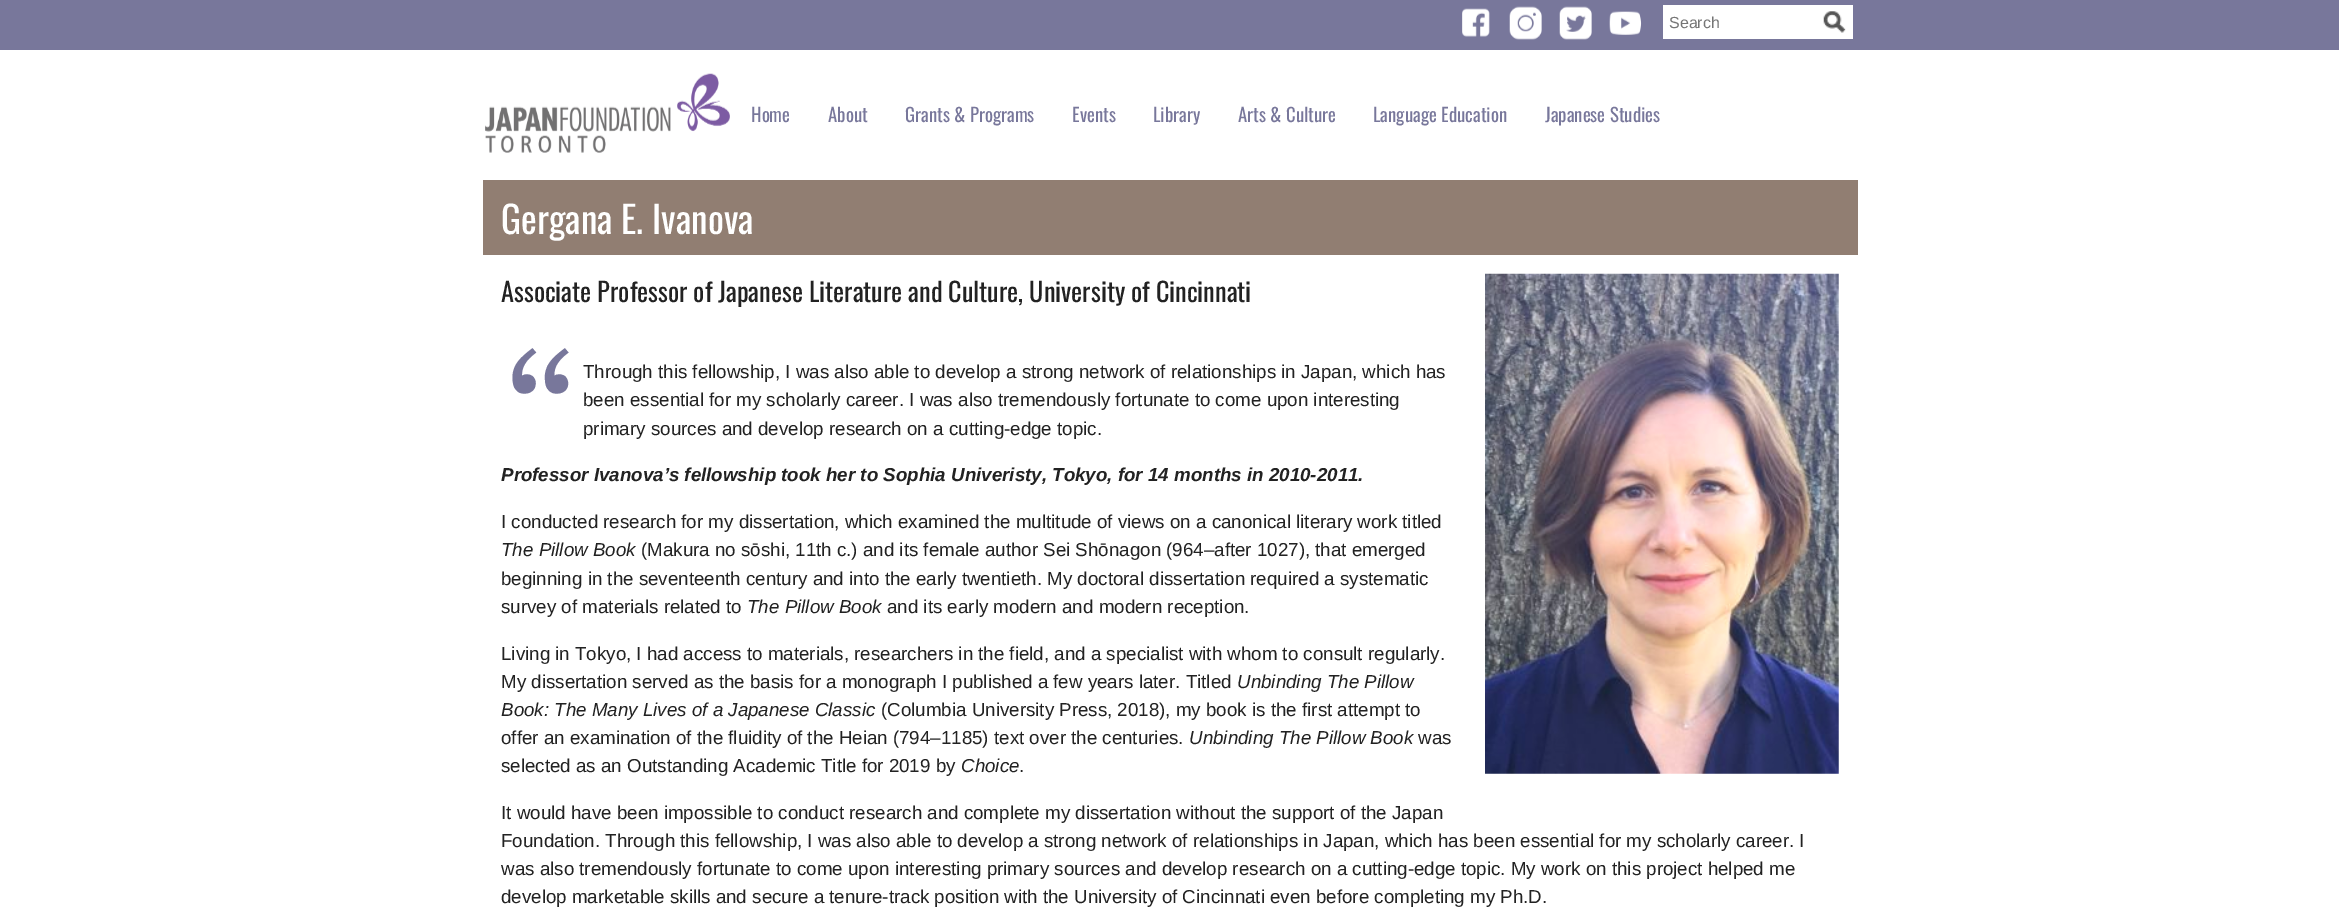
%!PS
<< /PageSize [2339 914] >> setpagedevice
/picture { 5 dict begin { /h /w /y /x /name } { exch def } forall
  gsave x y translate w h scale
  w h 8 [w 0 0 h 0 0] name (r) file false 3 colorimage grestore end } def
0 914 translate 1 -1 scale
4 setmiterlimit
1 setgray
0 0 2339 914 rectfill
0.471 0.467 0.608 setrgbcolor
0 0 2339 50 rectfill
(img1.rgb) 1462 8 28 29 picture
(img2.rgb) 1509 6 33 34 picture
(img3.rgb) 1559 6 33 34 picture
(img4.rgb) 1609 11 33 24 picture
1 setgray
1663 5 190 34 rectfill
(img5.rgb) 1823 11 23 22 picture
/LiberationSans-Regular [16 0 0 -16 0 0] selectfont
0.459 setgray
1669 28 moveto (Search) show
(img6.rgb) 485 73 245 80 picture
/Oswald-Regular [18.75 0 0 -18.75 0 0] selectfont
0.471 0.467 0.608 setrgbcolor
751 122 moveto (Home) show
828 122 moveto (About) show
905 122 moveto (Grants & Programs) show
1072 122 moveto (Events) show
1153 122 moveto (Library) show
1238 122 moveto (Arts & Culture) show
1373 122 moveto (Language Education) show
1545 122 moveto (Japanese Studies) show
0.569 0.494 0.447 setrgbcolor
483 180 1375 75 rectfill
/Oswald-Regular [37.5 0 0 -37.5 0 0] selectfont
1 setgray
501 234 moveto (Gergana E. Ivanova) show
/Oswald-Regular [26.25 0 0 -26.25 0 0] selectfont
0.133 setgray
501 302 moveto (Associate Professor of Japanese Literature and Culture, University of Cincinnati) show
(img7.rgb) 1485 273 354 501 picture
/LibreBaskerville-Regular [169 0 0 -169 0 0] selectfont
0.471 0.467 0.608 setrgbcolor
503 488 moveto (“) show
/LiberationSans-Regular [18.75 0 0 -18.75 0 0] selectfont
0.133 setgray
583 378 moveto (Through this fellowship, I was also able to develop a strong network of relationships in Japan, which has) show
583 406 moveto (been essential for my scholarly career. I was also tremendously fortunate to come upon interesting) show
583 435 moveto (primary sources and develop research on a cutting-edge topic.) show
/LiberationSans-BoldItalic [18.75 0 0 -18.75 0 0] selectfont
501 481 moveto (Professor Ivanova’s fellowship took her to Sophia Univeristy, Tokyo, for 14 months in 2010-2011.) show
/LiberationSans-Regular [18.75 0 0 -18.75 0 0] selectfont
501 528 moveto (I conducted research for my dissertation, which examined the multitude of views on a canonical literary work titled) show
/LiberationSans-Italic [18.75 0 0 -18.75 0 0] selectfont
501 556 moveto (The Pillow Book) show
/LiberationSans-Regular [18.75 0 0 -18.75 0 0] selectfont
641 556 moveto (\(Makura no sōshi, 11th c.\) and its female author Sei Shōnagon \(964–after 1027\), that emerged) show
501 585 moveto (beginning in the seventeenth century and into the early twentieth. My doctoral dissertation required a systematic) show
501 613 moveto (survey of materials related to) show
/LiberationSans-Italic [18.75 0 0 -18.75 0 0] selectfont
747 613 moveto (The Pillow Book) show
/LiberationSans-Regular [18.75 0 0 -18.75 0 0] selectfont
887 613 moveto (and its early modern and modern reception.) show
501 660 moveto (Living in Tokyo, I had access to materials, researchers in the field, and a specialist with whom to consult regularly.) show
501 688 moveto (My dissertation served as the basis for a monograph I published a few years later. Titled) show
/LiberationSans-Italic [18.75 0 0 -18.75 0 0] selectfont
1237 688 moveto (Unbinding The Pillow) show
501 716 moveto (Book: The Many Lives of a Japanese Classic) show
/LiberationSans-Regular [18.75 0 0 -18.75 0 0] selectfont
881 716 moveto (\(Columbia University Press, 2018\), my book is the first attempt to) show
501 744 moveto (offer an examination of the fluidity of the Heian \(794–1185\) text over the centuries.) show
/LiberationSans-Italic [18.75 0 0 -18.75 0 0] selectfont
1189 744 moveto (Unbinding The Pillow Book) show
/LiberationSans-Regular [18.75 0 0 -18.75 0 0] selectfont
1418 744 moveto (was) show
501 772 moveto (selected as an Outstanding Academic Title for 2019 by) show
/LiberationSans-Italic [18.75 0 0 -18.75 0 0] selectfont
961 772 moveto (Choice) show
/LiberationSans-Regular [18.75 0 0 -18.75 0 0] selectfont
1019 772 moveto (.) show
501 819 moveto (It would have been impossible to conduct research and complete my dissertation without the support of the Japan) show
501 847 moveto (Foundation. Through this fellowship, I was also able to develop a strong network of relationships in Japan, which has been essential for my scholarly career. I) show
501 875 moveto (was also tremendously fortunate to come upon interesting primary sources and develop research on a cutting-edge topic. My work on this project helped me) show
501 903 moveto (develop marketable skills and secure a tenure-track position with the University of Cincinnati even before completing my Ph.D.) show
showpage
